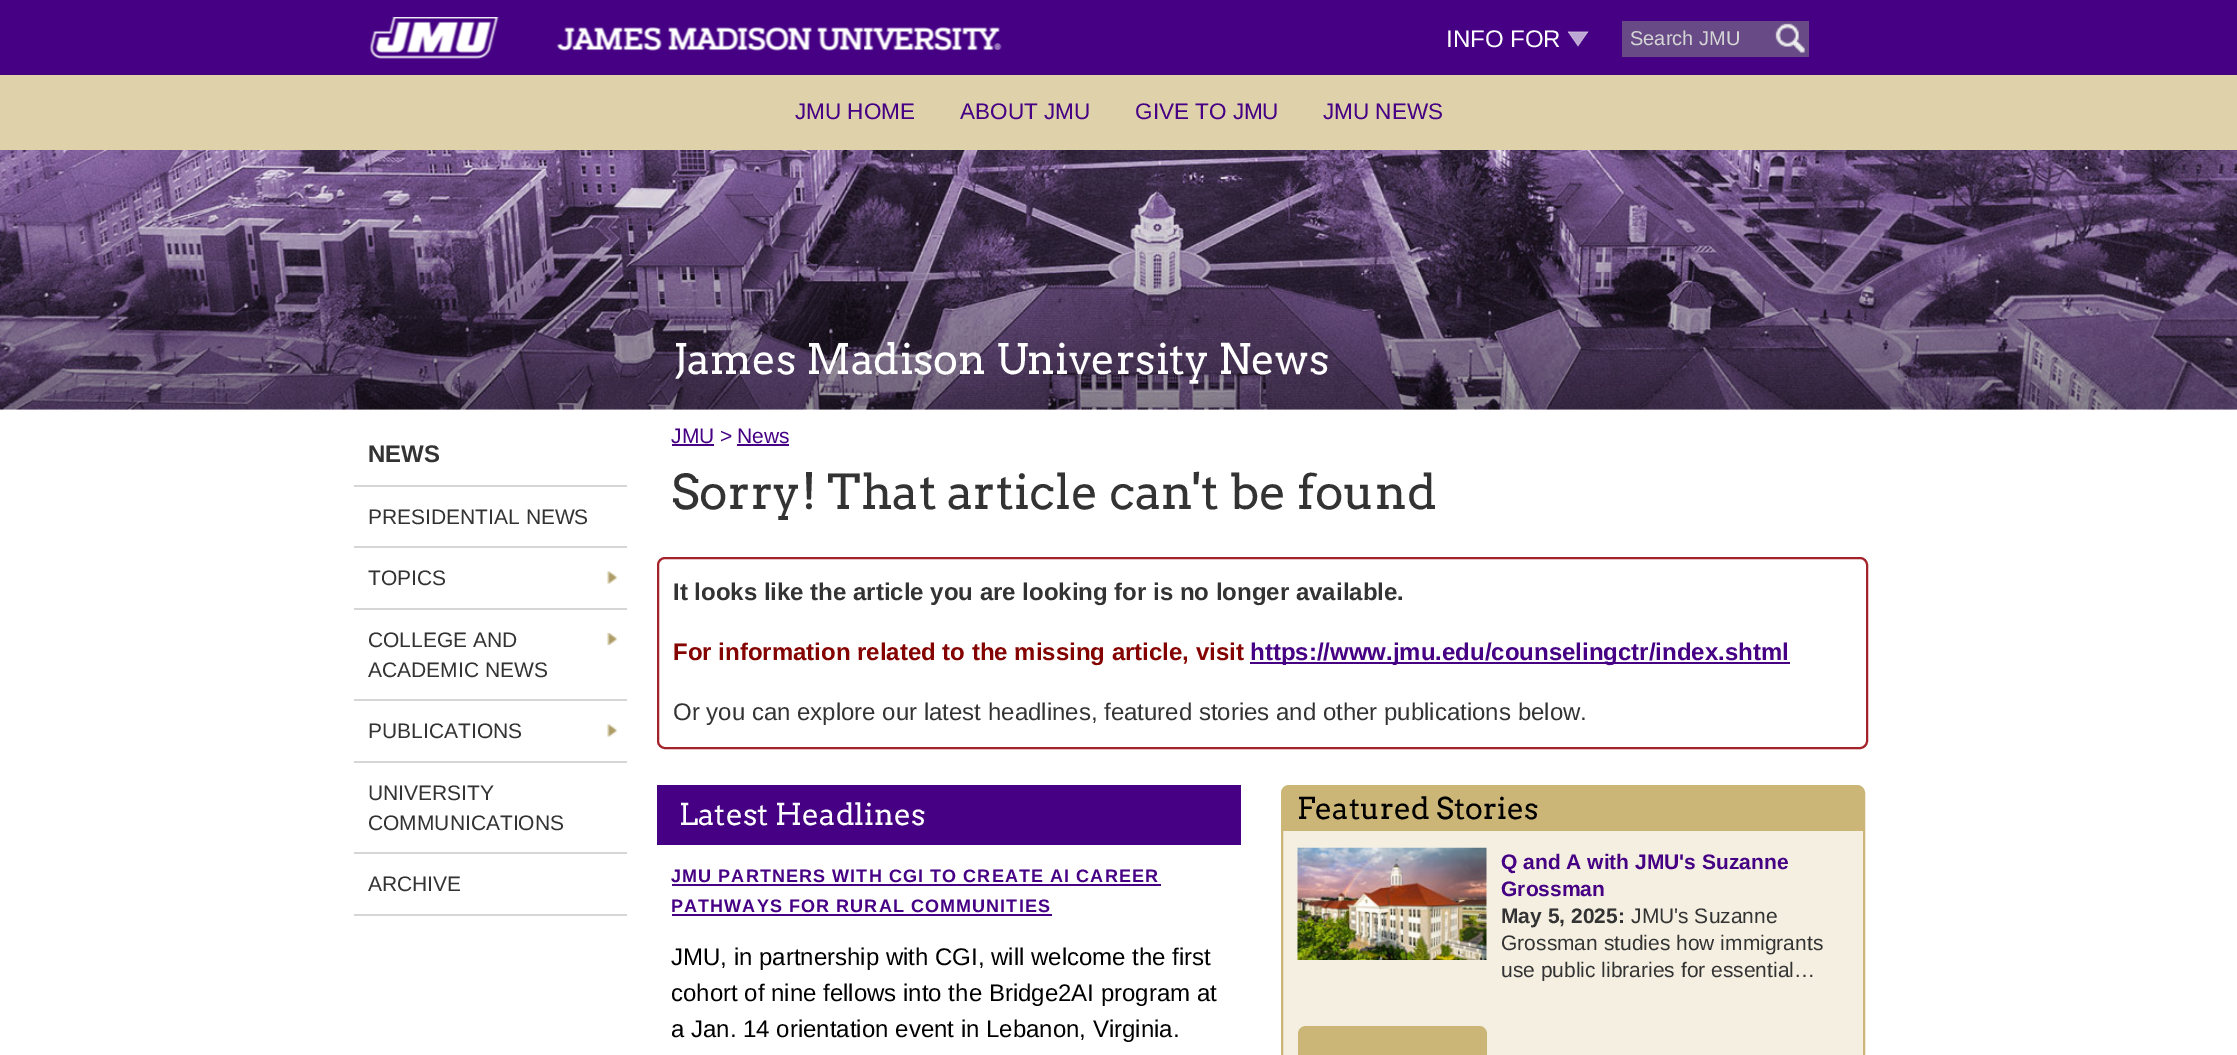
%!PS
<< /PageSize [2237 1055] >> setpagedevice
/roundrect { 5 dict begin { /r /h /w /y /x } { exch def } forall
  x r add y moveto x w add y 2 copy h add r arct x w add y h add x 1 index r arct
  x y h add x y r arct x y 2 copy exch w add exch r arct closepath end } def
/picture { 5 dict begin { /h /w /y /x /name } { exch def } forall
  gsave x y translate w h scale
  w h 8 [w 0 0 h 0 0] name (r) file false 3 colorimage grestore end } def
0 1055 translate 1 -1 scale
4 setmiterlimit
1 setgray
0 0 2237 1055 rectfill
0.271 0 0.518 setrgbcolor
0 0 2237 75 rectfill
(img1.rgb) 369 17 633 42 picture
/LiberationSans-Regular [24 0 0 -24 0 0] selectfont
1 setgray
1446 47 moveto (INFO FOR) show
(img2.rgb) 1567 31 22 16 picture
0.408 0.294 0.525 setrgbcolor
1622 21 187 36 rectfill
/LiberationSans-Regular [20 0 0 -20 0 0] selectfont
0.839 setgray
1630 45 moveto (Search JMU) show
(img3.rgb) 1775 23 30 30 picture
0.875 0.824 0.667 setrgbcolor
0 75 2237 75 rectfill
/LiberationSans-Regular [22.5 0 0 -22.5 0 0] selectfont
0.271 0 0.518 setrgbcolor
795 119 moveto (JMU HOME) show
960 119 moveto (ABOUT JMU) show
1135 119 moveto (GIVE TO JMU) show
1323 119 moveto (JMU NEWS) show
(img4.rgb) 0 150 2237 260 picture
/Arvo-Regular [42 0 0 -42 0 0] selectfont
1 setgray
673 374 moveto (James Madison University News) show
0.839 setgray
354 485 273 2 rectfill
/LiberationSans-Bold [24 0 0 -24 0 0] selectfont
0.2 setgray
368 462 moveto (NEWS) show
0.839 setgray
354 546 273 2 rectfill
/LiberationSans-Regular [21 0 0 -21 0 0] selectfont
0.2 setgray
368 524 moveto (PRESIDENTIAL NEWS) show
(img5.rgb) 607 571 10 13 picture
0.839 setgray
354 608 273 2 rectfill
0.2 setgray
368 585 moveto (TOPICS) show
(img6.rgb) 607 633 10 12 picture
0.839 setgray
354 699 273 2 rectfill
0.2 setgray
368 647 moveto (COLLEGE AND) show
368 677 moveto (ACADEMIC NEWS) show
(img5.rgb) 607 724 10 13 picture
0.839 setgray
354 761 273 2 rectfill
0.2 setgray
368 738 moveto (PUBLICATIONS) show
0.839 setgray
354 852 273 2 rectfill
0.2 setgray
368 800 moveto (UNIVERSITY) show
368 830 moveto (COMMUNICATIONS) show
0.839 setgray
354 914 273 2 rectfill
0.2 setgray
368 891 moveto (ARCHIVE) show
0.271 0 0.518 setrgbcolor
671 443 moveto (JMU) show
672 444 42 2 rectfill
720 443 moveto (>) show
737 443 moveto (News) show
737 444 52 2 rectfill
/Arvo-Regular [48 0 0 -48 0 0] selectfont
0.2 setgray
671 509 moveto (Sorry! That article can't be found) show
0.643 0.137 0.169 setrgbcolor
2 setlinewidth
658 558 1209 190 7 roundrect stroke
/LiberationSans-Bold [24 0 0 -24 0 0] selectfont
0.2 setgray
673 600 moveto (It looks like the article you are looking for is no longer available.) show
0.518 0.012 0 setrgbcolor
673 660 moveto (For information related to the missing article, visit) show
0.271 0 0.518 setrgbcolor
1250 662 540 2 rectfill
1250 660 moveto (https://www.jmu.edu/counselingctr/index.shtml) show
/LiberationSans-Regular [24 0 0 -24 0 0] selectfont
0.2 setgray
673 720 moveto (Or you can explore our latest headlines, featured stories and other publications below.) show
0.271 0 0.518 setrgbcolor
657 785 584 60 rectfill
/Arvo-Regular [30 0 0 -30 0 0] selectfont
1 setgray
679 825 moveto (Latest Headlines) show
/LiberationSans-Bold [18 0 0 -18 0 0] selectfont
0.271 0 0.518 setrgbcolor
671 882 moveto 1.1 0 (JMU PARTNERS WITH CGI TO CREATE AI CAREER) ashow
672 884 489 2 rectfill
671 912 moveto 1.1 0 (PATHWAYS FOR RURAL COMMUNITIES) ashow
672 914 380 2 rectfill
/LiberationSans-Regular [24 0 0 -24 0 0] selectfont
0 setgray
671 965 moveto (JMU, in partnership with CGI, will welcome the first) show
671 1001 moveto (cohort of nine fellows into the Bridge2AI program at) show
671 1037 moveto (a Jan. 14 orientation event in Lebanon, Virginia.) show
0.957 0.937 0.882 setrgbcolor
1282 786 582 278 7 roundrect gsave fill grestore
0.796 0.714 0.467 setrgbcolor
stroke
newpath 1288 786 moveto 1858 786 lineto 1861 786 1863 788 1863 791 curveto 1863 831 lineto 1283 831 lineto 1283 791 lineto 1283 788 1285 786 1288 786 curveto closepath fill
/Arvo-Regular [30 0 0 -30 0 0] selectfont
0 setgray
1297 819 moveto (Featured Stories) show
(img7.rgb) 1297 847 190 113 picture
/LiberationSans-Bold [21 0 0 -21 0 0] selectfont
0.271 0 0.518 setrgbcolor
1501 869 moveto (Q and A with JMU's Suzanne) show
1501 896 moveto (Grossman) show
0.2 setgray
1501 923 moveto (May 5, 2025:) show
/LiberationSans-Regular [21 0 0 -21 0 0] selectfont
1631 923 moveto (JMU's Suzanne) show
1501 950 moveto (Grossman studies how immigrants) show
gsave
1502 894 346 87 rectclip
1501 977 moveto (use public libraries for essential…) show
grestore
0.796 0.714 0.467 setrgbcolor
1298 1026 189 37 8 roundrect fill
showpage
